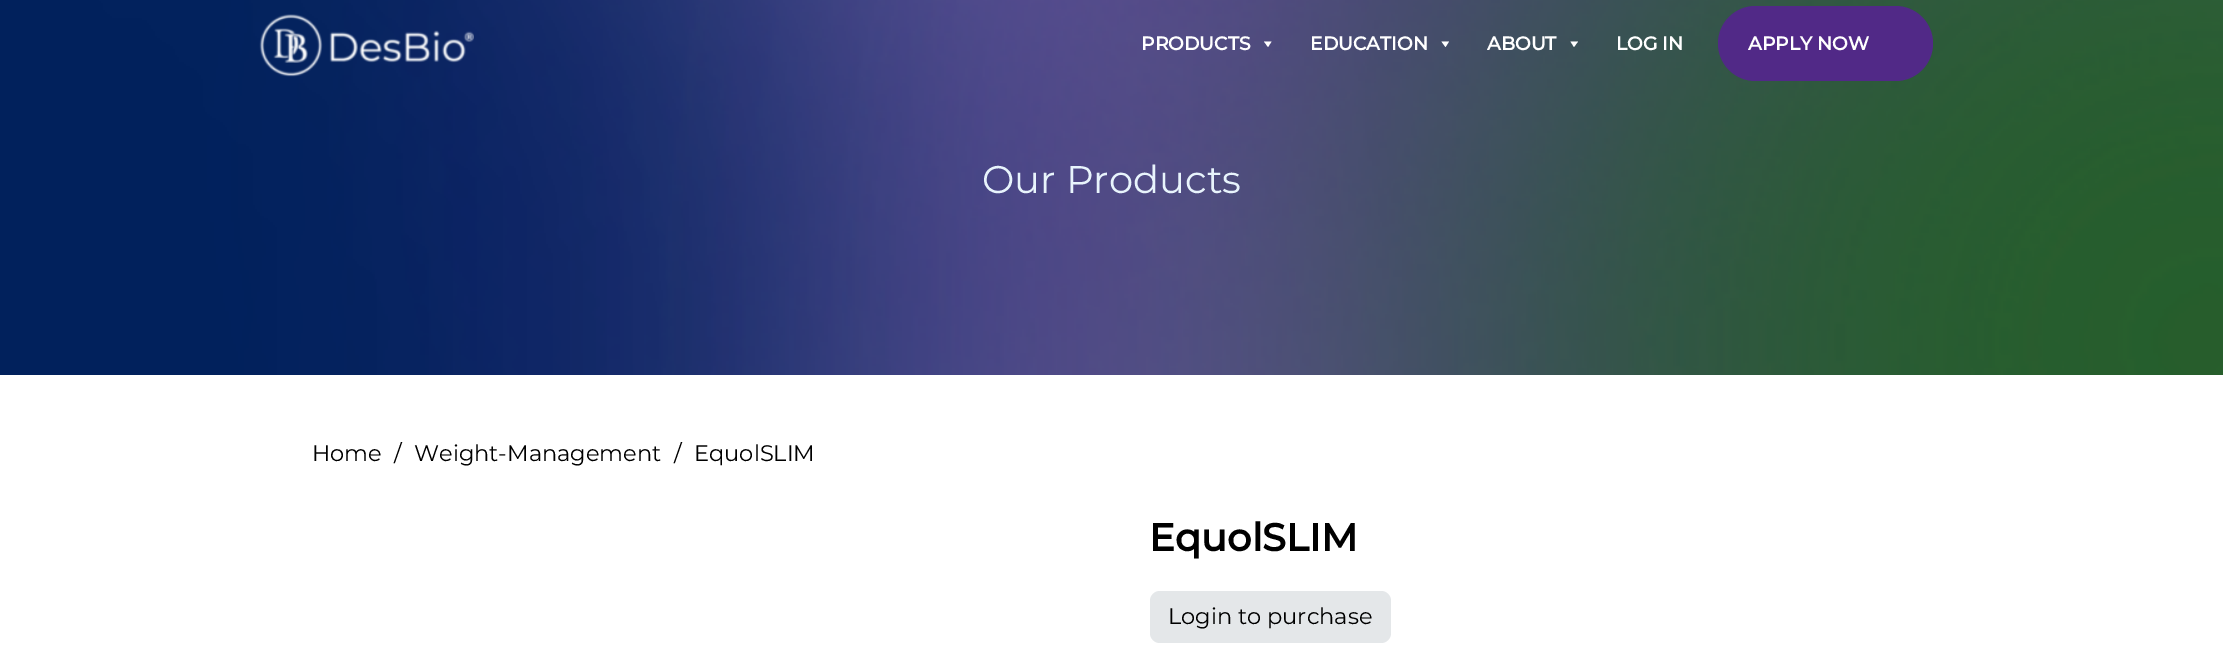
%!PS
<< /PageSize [2223 649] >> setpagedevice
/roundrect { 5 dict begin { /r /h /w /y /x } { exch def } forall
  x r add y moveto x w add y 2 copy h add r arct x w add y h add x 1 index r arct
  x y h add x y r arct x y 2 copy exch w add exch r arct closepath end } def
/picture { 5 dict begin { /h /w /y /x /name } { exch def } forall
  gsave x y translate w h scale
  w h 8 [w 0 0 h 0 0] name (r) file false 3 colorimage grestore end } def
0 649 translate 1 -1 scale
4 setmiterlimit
1 setgray
0 0 2223 649 rectfill
(img2.rgb) 0 0 2223 375 picture
(img1.rgb) 259 14 215 63 picture
/Montserrat-Bold [18.75 0 0 -18.75 0 0] selectfont
1141 50 moveto (PRODUCTS) show
newpath 1271.5 41.5 moveto 1268 47 lineto 1264 41.5 lineto closepath fill
1310 50 moveto (EDUCATION) show
newpath 1449 41.5 moveto 1445.5 47 lineto 1441.5 41.5 lineto closepath fill
1487 50 moveto (ABOUT) show
newpath 1578 41.5 moveto 1574 47 lineto 1570.5 41.5 lineto closepath fill
1616 50 moveto (LOG IN) show
0.318 0.161 0.529 setrgbcolor
1718 6 215 75 37.5 roundrect fill
1 setgray
1748 50 moveto (APPLY NOW) show
/Montserrat-Regular [38.5 0 0 -38.5 0 0] selectfont
0.91 0.957 0.988 setrgbcolor
982 193 moveto (Our Products) show
/Montserrat-Regular [22.5 0 0 -22.5 0 0] selectfont
0 setgray
312 461 moveto (Home) show
394 461 moveto (/) show
414 461 moveto (Weight-Management) show
674 461 moveto (/) show
694 461 moveto (EquolSLIM) show
/Montserrat-Bold [38.5 0 0 -38.5 0 0] selectfont
1149 551 moveto (EquolSLIM) show
0.894 0.906 0.914 setrgbcolor
1150 591 241 52 10 roundrect fill
/Montserrat-Regular [22.5 0 0 -22.5 0 0] selectfont
0 setgray
1168 624 moveto (Login to purchase) show
showpage
